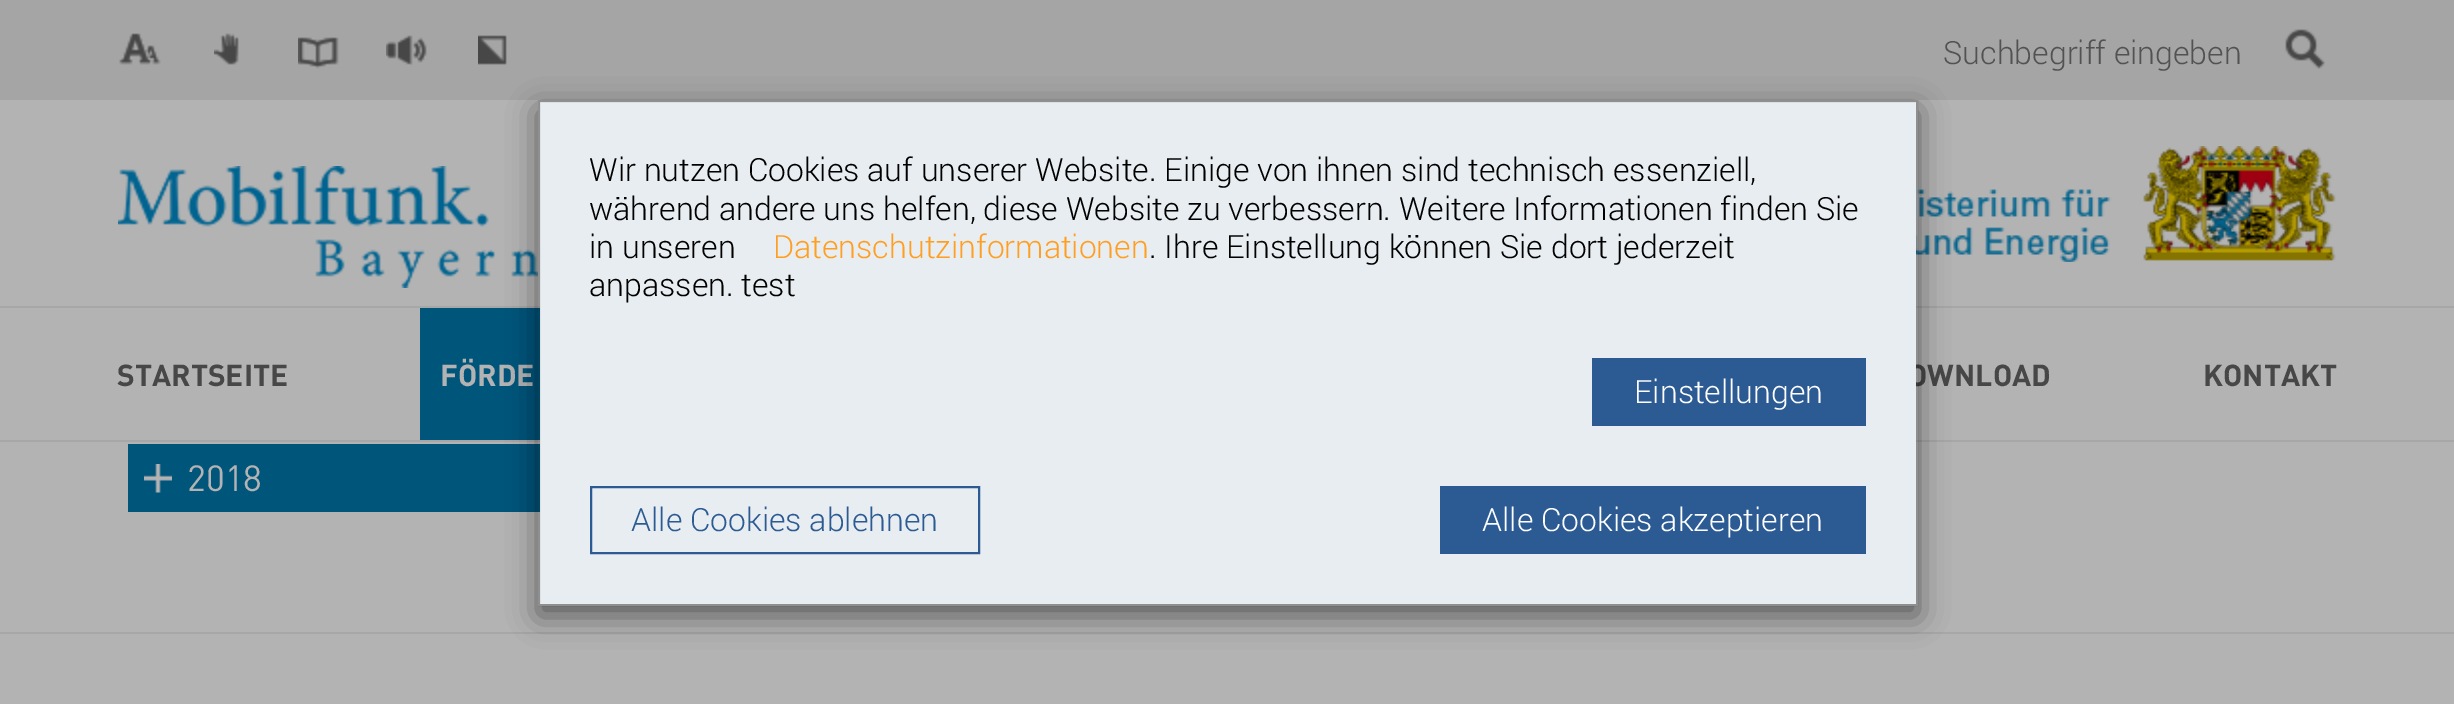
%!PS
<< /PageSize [2454 704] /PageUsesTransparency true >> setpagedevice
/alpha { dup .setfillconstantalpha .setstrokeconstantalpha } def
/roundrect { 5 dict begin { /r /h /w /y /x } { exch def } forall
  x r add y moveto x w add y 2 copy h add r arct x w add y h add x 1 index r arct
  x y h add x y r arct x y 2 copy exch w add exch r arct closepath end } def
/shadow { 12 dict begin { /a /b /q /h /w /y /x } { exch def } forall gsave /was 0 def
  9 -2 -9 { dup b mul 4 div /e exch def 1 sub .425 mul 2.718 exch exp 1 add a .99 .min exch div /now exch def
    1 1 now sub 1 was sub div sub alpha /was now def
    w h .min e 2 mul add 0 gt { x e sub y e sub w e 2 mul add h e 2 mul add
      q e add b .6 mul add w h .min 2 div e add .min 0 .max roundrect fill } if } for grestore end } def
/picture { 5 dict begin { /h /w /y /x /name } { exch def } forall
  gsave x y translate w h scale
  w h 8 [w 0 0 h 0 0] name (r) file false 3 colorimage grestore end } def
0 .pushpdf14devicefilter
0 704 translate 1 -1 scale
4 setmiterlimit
0.702 setgray
0 0 2454 704 rectfill
0.655 setgray
0 440 2454 2 rectfill
0.647 setgray
0 0 2454 100 rectfill
(img1.rgb) 119 33 42 32 picture
(img2.rgb) 214 33 25 32 picture
(img3.rgb) 298 37 41 32 picture
(img4.rgb) 386 35 41 31 picture
(img5.rgb) 478 35 29 30 picture
/Roboto-Light [32 0 0 -32 0 0] selectfont
0.322 setgray
1943 64 moveto (Suchbegriff eingeben) show
(img6.rgb) 2285 29 40 40 picture
0.655 setgray
0 306 2454 2 rectfill
(img7.rgb) 118 166 420 122 picture
(img8.rgb) 1916 146 420 116 picture
/DIN-Bold [30 0 0 -30 0 0] selectfont
0.278 setgray
117 386 moveto (STARTSEITE) show
0 0.333 0.482 setrgbcolor
420 308 120 132 rectfill
0.702 setgray
440 386 moveto (FÖRDE) show
0.278 setgray
1908 386 moveto (OWNLOAD) show
2203 386 moveto (KONTAKT) show
0 0.333 0.482 setrgbcolor
128 444 412 68 rectfill
(img9.rgb) 144 464 28 29 picture
/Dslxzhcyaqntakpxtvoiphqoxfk-Regular [36 0 0 -36 0 0] selectfont
0.702 setgray
187 491 moveto (2018) show
0.655 setgray
0 632 2454 2 rectfill
gsave
newpath 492 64 moveto 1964 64 lineto 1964 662 lineto 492 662 lineto closepath 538 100 moveto 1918 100 lineto 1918 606 lineto 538 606 lineto closepath eoclip newpath
0 setgray
538 110 1380 506 0 15 0.5 shadow
grestore
0.91 0.929 0.945 setrgbcolor
540 102 1376 502 rectfill
0.2 alpha
0 setgray
2 setlinewidth
539 101 1378 504 rectstroke
/Roboto-Light [32 0 0 -32 0 0] selectfont
1 alpha
589 181 moveto (Wir nutzen Cookies auf unserer Website. Einige von ihnen sind technisch essenziell,) show
589 220 moveto (während andere uns helfen, diese Website zu verbessern. Weitere Informationen finden Sie) show
589 258 moveto (in unseren) show
1 0.62 0.129 setrgbcolor
773 258 moveto (Datenschutzinformationen) show
0 setgray
1149 258 moveto (. Ihre Einstellung können Sie dort jederzeit) show
589 296 moveto (anpassen. test) show
0.173 0.353 0.576 setrgbcolor
1592 358 274 68 rectfill
1 setgray
1634 403 moveto (Einstellungen) show
0.173 0.353 0.576 setrgbcolor
591 487 388 66 rectstroke
631 531 moveto (Alle Cookies ablehnen) show
1440 486 426 68 rectfill
1 setgray
1482 531 moveto (Alle Cookies akzeptieren) show
.poppdf14devicefilter showpage
